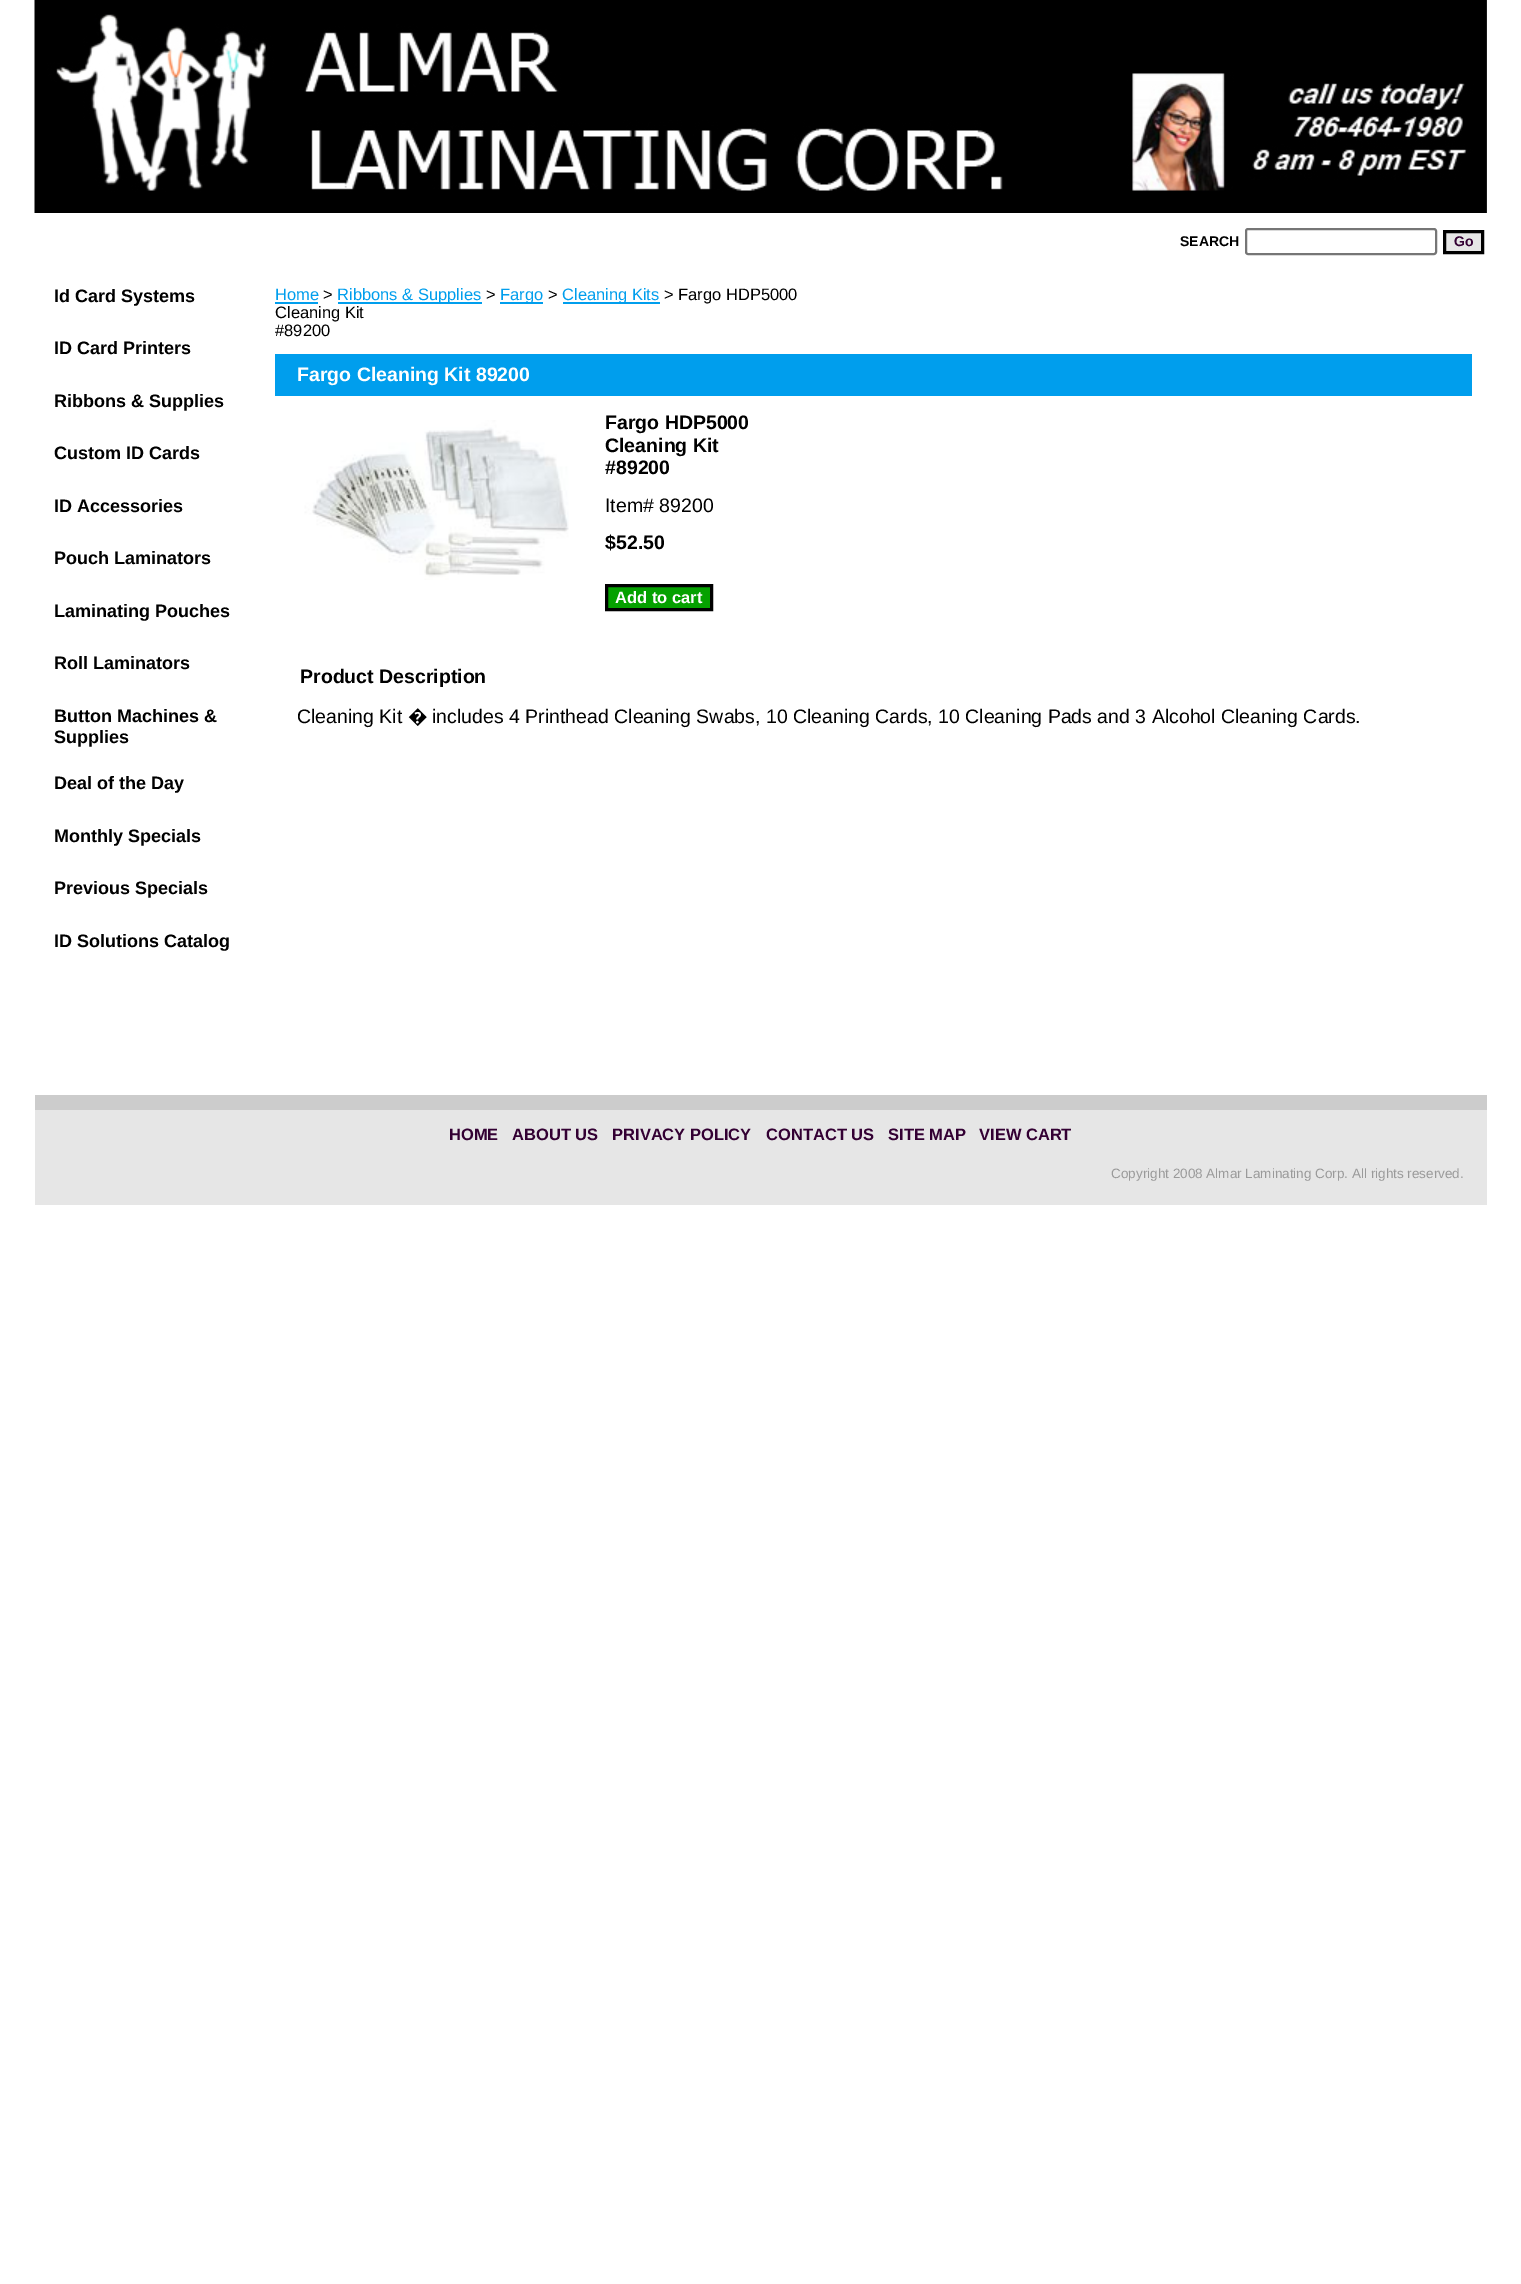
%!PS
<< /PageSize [1521 2284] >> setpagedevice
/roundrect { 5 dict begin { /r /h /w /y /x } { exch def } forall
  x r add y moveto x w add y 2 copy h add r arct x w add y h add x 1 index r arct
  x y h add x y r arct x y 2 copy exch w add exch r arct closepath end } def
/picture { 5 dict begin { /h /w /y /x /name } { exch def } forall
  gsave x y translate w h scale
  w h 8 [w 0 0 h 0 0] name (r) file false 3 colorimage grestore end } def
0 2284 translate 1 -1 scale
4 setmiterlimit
1 setgray
0 0 1521 2284 rectfill
0.2 setgray
1486 0 1 213 rectfill
(img1.rgb) 34 0 1453 213 picture
/LiberationSans-Bold [14 0 0 -14 0 0] selectfont
0 setgray
1180 246 moveto (SEARCH) show
0.463 setgray
2 setlinewidth
1246 229 190 25 2 roundrect stroke
0.902 setgray
newpath 1444.5 231.5 moveto 1482.5 231.5 lineto 1482.5 252.5 lineto 1444.5 252.5 lineto closepath gsave fill grestore
0 setgray
3 setlinewidth
stroke
0.2 0 0.2 setrgbcolor
1454 246 moveto (Go) show
/LiberationSans-Bold [18 0 0 -18 0 0] selectfont
0 setgray
54 302 moveto (Id Card Systems) show
54 354 moveto (ID Card Printers) show
54 407 moveto (Ribbons & Supplies) show
54 459 moveto (Custom ID Cards) show
54 512 moveto (ID Accessories) show
54 564 moveto (Pouch Laminators) show
54 617 moveto (Laminating Pouches) show
54 669 moveto (Roll Laminators) show
54 722 moveto (Button Machines &) show
54 743 moveto (Supplies) show
54 789 moveto (Deal of the Day) show
54 842 moveto (Monthly Specials) show
54 894 moveto (Previous Specials) show
54 947 moveto (ID Solutions Catalog) show
/LiberationSans-Regular [16.5 0 0 -16.5 0 0] selectfont
0 0.62 0.929 setrgbcolor
275 300 moveto (Home) show
275 302 43 2 rectfill
0 setgray
323 300 moveto (>) show
0 0.62 0.929 setrgbcolor
338 302 144 2 rectfill
337 300 moveto (Ribbons & Supplies) show
0 setgray
486 300 moveto (>) show
0 0.62 0.929 setrgbcolor
500 302 43 2 rectfill
500 300 moveto (Fargo) show
0 setgray
548 300 moveto (>) show
0 0.62 0.929 setrgbcolor
563 302 97 2 rectfill
562 300 moveto (Cleaning Kits) show
0 setgray
664 300 moveto (> Fargo HDP5000) show
275 318 moveto (Cleaning Kit) show
275 336 moveto (#89200) show
0 0.62 0.929 setrgbcolor
275 354 1197 42 rectfill
/LiberationSans-Bold [19.5 0 0 -19.5 0 0] selectfont
1 setgray
297 381 moveto (Fargo Cleaning Kit 89200) show
(img2.rgb) 304 420 265 160 picture
0 setgray
605 429 moveto (Fargo HDP5000) show
605 452 moveto (Cleaning Kit) show
605 474 moveto (#89200) show
/LiberationSans-Regular [19.5 0 0 -19.5 0 0] selectfont
605 512 moveto (Item# 89200) show
/LiberationSans-Bold [19.5 0 0 -19.5 0 0] selectfont
605 549 moveto ($52.50) show
0.02 0.631 0 setrgbcolor
newpath 606.5 585.5 moveto 711.5 585.5 lineto 711.5 609.5 lineto 606.5 609.5 lineto closepath gsave fill grestore
0 setgray
stroke
/LiberationSans-Bold [16.5 0 0 -16.5 0 0] selectfont
1 setgray
615 603 moveto (Add to cart) show
/LiberationSans-Bold [19.5 0 0 -19.5 0 0] selectfont
0 setgray
300 683 moveto (Product Description) show
/LiberationSans-Regular [19.5 0 0 -19.5 0 0] selectfont
297 723 moveto (Cleaning Kit) show
/NotoSans-Regular [19.5 0 0 -19.5 0 0] selectfont
408 723 moveto (�) show
/LiberationSans-Regular [19.5 0 0 -19.5 0 0] selectfont
432 723 moveto (includes 4 Printhead Cleaning Swabs, 10 Cleaning Cards, 10 Cleaning Pads and 3 Alcohol Cleaning Cards.) show
0.902 setgray
35 1110 1452 95 rectfill
0.8 setgray
35 1095 1452 15 rectfill
/LiberationSans-Bold [16.5 0 0 -16.5 0 0] selectfont
0.2 0 0.2 setrgbcolor
449 1140 moveto (HOME) show
512 1140 moveto (ABOUT US) show
612 1140 moveto (PRIVACY POLICY) show
766 1140 moveto (CONTACT US) show
888 1140 moveto (SITE MAP) show
979 1140 moveto (VIEW CART) show
/LiberationSans-Regular [13.5 0 0 -13.5 0 0] selectfont
0.604 setgray
1111 1178 moveto (Copyright 2008 Almar Laminating Corp. All rights reserved.) show
showpage
